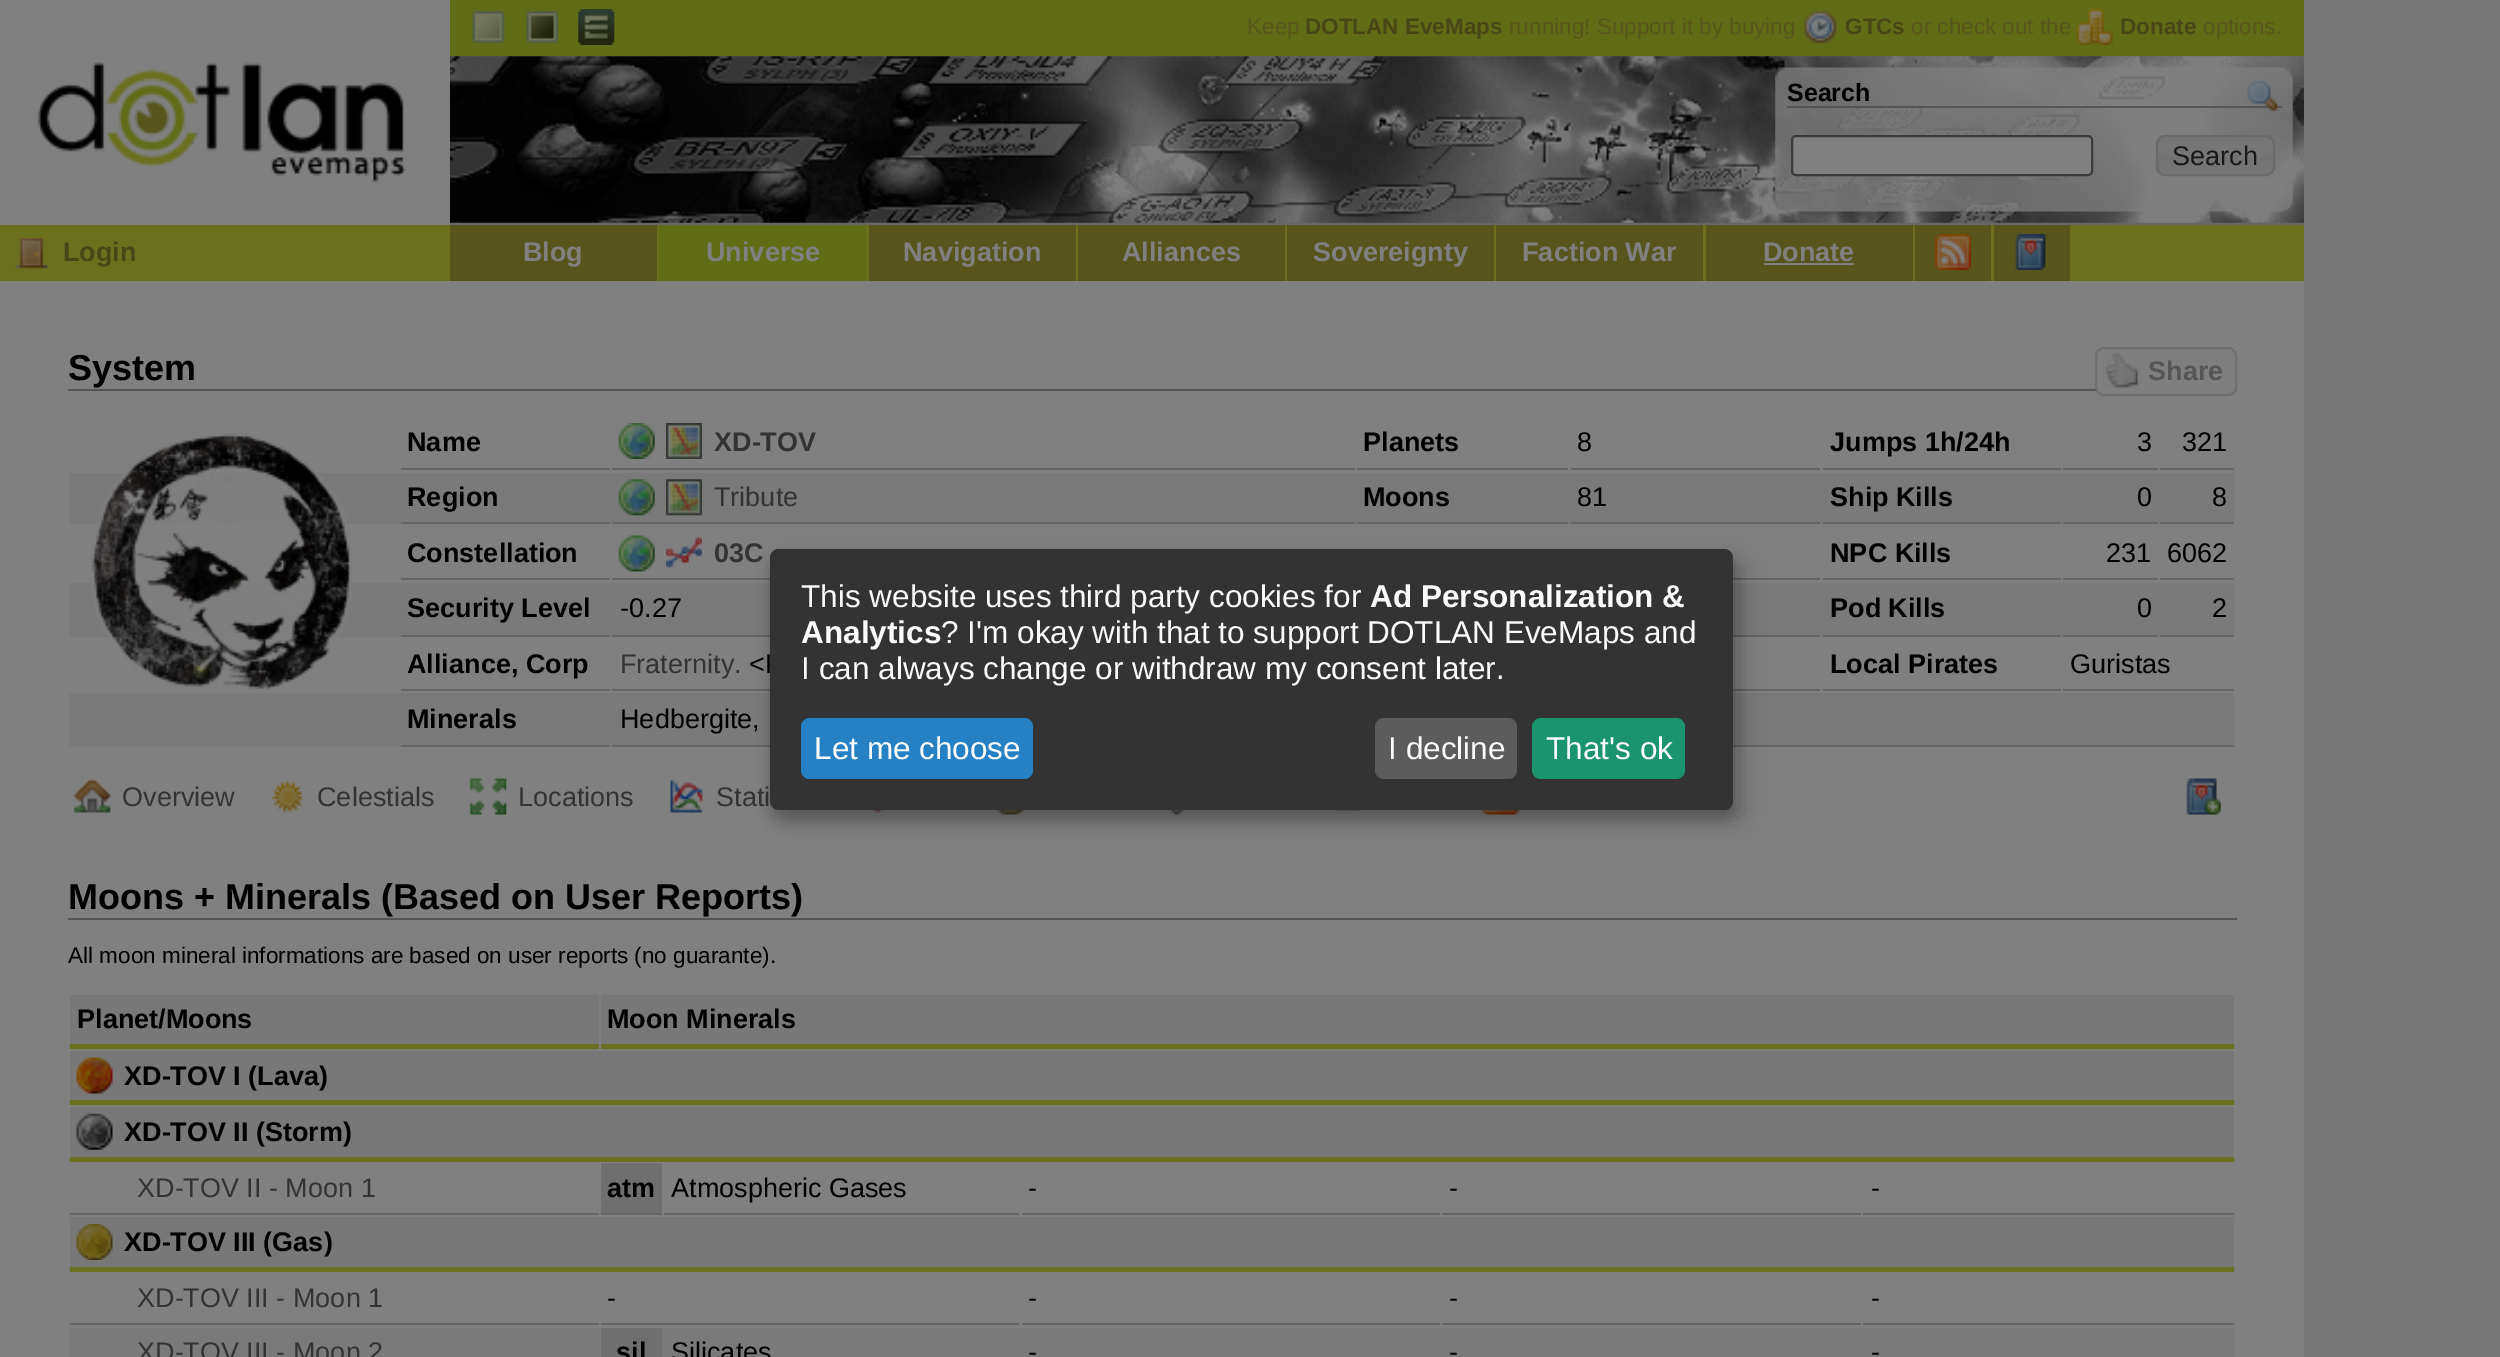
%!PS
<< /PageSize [2500 1357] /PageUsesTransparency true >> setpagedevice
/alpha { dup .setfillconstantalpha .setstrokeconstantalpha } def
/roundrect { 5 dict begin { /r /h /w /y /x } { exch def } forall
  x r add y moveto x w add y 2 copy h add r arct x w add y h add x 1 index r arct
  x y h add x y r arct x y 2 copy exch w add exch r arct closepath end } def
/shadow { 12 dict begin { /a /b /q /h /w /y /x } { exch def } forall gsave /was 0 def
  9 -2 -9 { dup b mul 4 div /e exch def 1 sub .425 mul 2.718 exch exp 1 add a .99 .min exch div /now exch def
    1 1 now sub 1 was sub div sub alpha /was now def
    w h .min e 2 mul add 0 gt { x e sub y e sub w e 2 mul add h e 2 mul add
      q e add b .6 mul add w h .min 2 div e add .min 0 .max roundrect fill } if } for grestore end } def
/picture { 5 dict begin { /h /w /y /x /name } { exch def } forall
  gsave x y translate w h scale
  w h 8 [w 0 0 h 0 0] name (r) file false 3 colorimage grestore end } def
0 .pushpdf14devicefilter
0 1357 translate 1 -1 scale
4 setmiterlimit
0.467 setgray
0 0 2500 1357 rectfill
0.502 setgray
0 281 2304 1076 rectfill
0 0 450 225 rectfill
(img1.rgb) 37 62 369 121 picture
0.38 0.424 0.09 setrgbcolor
450 0 1854 56 rectfill
(img2.rgb) 472 10 33 34 picture
(img3.rgb) 526 10 33 34 picture
(img4.rgb) 578 9 37 36 picture
/LiberationSans-Regular [22.5 0 0 -22.5 0 0] selectfont
0.341 0.333 0.11 setrgbcolor
1247 34 moveto (Keep) show
/LiberationSans-Bold [22.5 0 0 -22.5 0 0] selectfont
0.282 0.275 0.086 setrgbcolor
1305 34 moveto (DOTLAN EveMaps) show
/LiberationSans-Regular [22.5 0 0 -22.5 0 0] selectfont
0.341 0.333 0.11 setrgbcolor
1509 34 moveto (running! Support it by buying) show
(img5.rgb) 1804 10 33 34 picture
/LiberationSans-Bold [22.5 0 0 -22.5 0 0] selectfont
0.282 0.275 0.086 setrgbcolor
1845 34 moveto (GTCs) show
/LiberationSans-Regular [22.5 0 0 -22.5 0 0] selectfont
0.341 0.333 0.11 setrgbcolor
1911 34 moveto (or check out the) show
(img6.rgb) 2076 9 37 36 picture
/LiberationSans-Bold [22.5 0 0 -22.5 0 0] selectfont
0.282 0.275 0.086 setrgbcolor
2120 34 moveto (Donate) show
/LiberationSans-Regular [22.5 0 0 -22.5 0 0] selectfont
0.341 0.333 0.11 setrgbcolor
2203 34 moveto (options.) show
0.4 setgray
450 56 1854 169 rectfill
(img7.rgb) 450 56 1854 167 picture
(img8.rgb) 1775 67 518 145 picture
0.333 setgray
1787 106 495 2 rectfill
/LiberationSans-Bold [25 0 0 -25 0 0] selectfont
0 setgray
1787 101 moveto (Search) show
(img9.rgb) 2247 80 31 33 picture
0.502 setgray
1792 136 300 39 4 roundrect gsave fill grestore
0.231 setgray
2 setlinewidth
stroke
(img10.rgb) 2155 135 120 40 picture
0.416 setgray
2157 136 117 39 8 roundrect stroke
/LiberationSans-Regular [27 0 0 -27 0 0] selectfont
0.094 setgray
2172 165 moveto (Search) show
0.42 0.439 0.122 setrgbcolor
0 225 2304 56 rectfill
(img11.rgb) 15 238 33 31 picture
/LiberationSans-Bold [27 0 0 -27 0 0] selectfont
0.282 0.275 0.086 setrgbcolor
63 261 moveto (Login) show
0.341 0.333 0.11 setrgbcolor
450 225 207 56 rectfill
0.502 setgray
523 261 moveto (Blog) show
0.38 0.424 0.09 setrgbcolor
659 225 207 56 rectfill
0.502 setgray
706 261 moveto (Universe) show
0.341 0.333 0.11 setrgbcolor
869 225 207 56 rectfill
0.502 setgray
903 261 moveto (Navigation) show
0.341 0.333 0.11 setrgbcolor
1078 225 207 56 rectfill
0.502 setgray
1122 261 moveto (Alliances) show
0.341 0.333 0.11 setrgbcolor
1287 225 207 56 rectfill
0.502 setgray
1313 261 moveto (Sovereignty) show
0.341 0.333 0.11 setrgbcolor
1496 225 207 56 rectfill
0.502 setgray
1522 261 moveto (Faction War) show
0.341 0.333 0.11 setrgbcolor
1706 225 207 56 rectfill
0.502 setgray
1763 261 moveto (Donate) show
1764 263 90 2 rectfill
0.341 0.333 0.11 setrgbcolor
1915 225 76 56 rectfill
(img12.rgb) 1935 234 36 36 picture
1994 225 76 56 rectfill
(img13.rgb) 2015 234 31 36 picture
0.333 setgray
68 389 2169 2 rectfill
/LiberationSans-Bold [36 0 0 -36 0 0] selectfont
0 setgray
68 380 moveto (System) show
0.498 setgray
2096 348 140 47 8 roundrect gsave fill grestore
0.435 setgray
stroke
(img14.rgb) 2105 353 34 36 picture
/LiberationSans-Bold [27 0 0 -27 0 0] selectfont
0.333 setgray
2148 380 moveto (Share) show
0.478 setgray
70 473 2164 51 rectfill
70 583 2164 54 rectfill
(img15.rgb) 91 433 262 257 picture
0.4 setgray
401 468 209 2 rectfill
0 setgray
407 451 moveto (Name) show
0.4 setgray
612 468 743 2 rectfill
(img16.rgb) 618 423 37 36 picture
(img17.rgb) 666 423 36 36 picture
0.2 setgray
714 451 moveto (XD-TOV) show
0.4 setgray
1357 468 211 2 rectfill
0 setgray
1363 451 moveto (Planets) show
0.4 setgray
1571 468 249 2 rectfill
/LiberationSans-Regular [27 0 0 -27 0 0] selectfont
0 setgray
1577 451 moveto (8) show
0.4 setgray
1823 468 238 2 rectfill
/LiberationSans-Bold [27 0 0 -27 0 0] selectfont
0 setgray
1830 451 moveto (Jumps 1h/24h) show
0.4 setgray
2063 468 95 2 rectfill
/LiberationSans-Regular [27 0 0 -27 0 0] selectfont
0 setgray
2137 451 moveto (3) show
0.4 setgray
2160 468 74 2 rectfill
0 setgray
2182 451 moveto (321) show
0.4 setgray
401 522 209 2 rectfill
/LiberationSans-Bold [27 0 0 -27 0 0] selectfont
0 setgray
407 506 moveto (Region) show
0.4 setgray
612 522 743 2 rectfill
(img18.rgb) 618 479 37 37 picture
(img19.rgb) 666 479 36 37 picture
/LiberationSans-Regular [27 0 0 -27 0 0] selectfont
0.2 setgray
714 506 moveto (Tribute) show
0.4 setgray
1357 522 211 2 rectfill
/LiberationSans-Bold [27 0 0 -27 0 0] selectfont
0 setgray
1363 506 moveto (Moons) show
0.4 setgray
1571 522 249 2 rectfill
/LiberationSans-Regular [27 0 0 -27 0 0] selectfont
0 setgray
1577 506 moveto (81) show
0.4 setgray
1823 522 238 2 rectfill
/LiberationSans-Bold [27 0 0 -27 0 0] selectfont
0 setgray
1830 506 moveto (Ship Kills) show
0.4 setgray
2063 522 95 2 rectfill
/LiberationSans-Regular [27 0 0 -27 0 0] selectfont
0 setgray
2137 506 moveto (0) show
0.4 setgray
2160 522 74 2 rectfill
0 setgray
2212 506 moveto (8) show
0.4 setgray
401 578 209 2 rectfill
/LiberationSans-Bold [27 0 0 -27 0 0] selectfont
0 setgray
407 562 moveto (Constellation) show
0.4 setgray
612 578 158 2 rectfill
(img20.rgb) 618 535 37 37 picture
(img21.rgb) 666 537 36 31 picture
0.2 setgray
714 562 moveto (03C) show
0.4 setgray
1823 578 238 2 rectfill
0 setgray
1830 562 moveto (NPC Kills) show
0.4 setgray
2063 578 95 2 rectfill
/LiberationSans-Regular [27 0 0 -27 0 0] selectfont
0 setgray
2106 562 moveto (231) show
0.4 setgray
2160 578 74 2 rectfill
0 setgray
2167 562 moveto (6062) show
0.4 setgray
1733 578 87 2 rectfill
401 635 209 2 rectfill
/LiberationSans-Bold [27 0 0 -27 0 0] selectfont
0 setgray
407 617 moveto (Security Level) show
0.4 setgray
612 635 158 2 rectfill
/LiberationSans-Regular [27 0 0 -27 0 0] selectfont
0 setgray
620 617 moveto (-0.27) show
0.4 setgray
1823 635 238 2 rectfill
/LiberationSans-Bold [27 0 0 -27 0 0] selectfont
0 setgray
1830 617 moveto (Pod Kills) show
0.4 setgray
2063 635 95 2 rectfill
/LiberationSans-Regular [27 0 0 -27 0 0] selectfont
0 setgray
2137 617 moveto (0) show
0.4 setgray
2160 635 74 2 rectfill
0 setgray
2212 617 moveto (2) show
0.4 setgray
1733 635 87 2 rectfill
401 689 209 2 rectfill
/LiberationSans-Bold [27 0 0 -27 0 0] selectfont
0 setgray
407 673 moveto (Alliance, Corp) show
0.4 setgray
612 689 1208 2 rectfill
/LiberationSans-Regular [27 0 0 -27 0 0] selectfont
0.2 setgray
620 673 moveto (Fraternity.) show
0 setgray
749 673 moveto (<F) show
0.4 setgray
1823 689 238 2 rectfill
/LiberationSans-Bold [27 0 0 -27 0 0] selectfont
0 setgray
1830 673 moveto (Local Pirates) show
0.4 setgray
2063 689 171 2 rectfill
/LiberationSans-Regular [27 0 0 -27 0 0] selectfont
0 setgray
2070 673 moveto (Guristas) show
0.478 setgray
70 693 2164 54 rectfill
0.4 setgray
401 745 209 2 rectfill
/LiberationSans-Bold [27 0 0 -27 0 0] selectfont
0 setgray
407 728 moveto (Minerals) show
0.4 setgray
612 745 1622 2 rectfill
/LiberationSans-Regular [27 0 0 -27 0 0] selectfont
0 setgray
620 728 moveto (Hedbergite,) show
(img22.rgb) 74 778 37 35 picture
0.2 setgray
122 806 moveto (Overview) show
(img23.rgb) 271 780 33 33 picture
317 806 moveto (Celestials) show
(img24.rgb) 470 778 37 37 picture
518 806 moveto (Locations) show
(img25.rgb) 670 780 33 33 picture
716 806 moveto (Stati) show
(img26.rgb) 2186 778 35 37 picture
(img27.rgb) 872 810 12 3 picture
(img28.rgb) 996 810 31 5 picture
(img29.rgb) 1169 810 17 5 picture
(img30.rgb) 1333 810 29 1 picture
(img31.rgb) 1482 810 37 5 picture
0.333 setgray
68 918 2169 2 rectfill
/LiberationSans-Bold [36 0 0 -36 0 0] selectfont
0 setgray
68 909 moveto (Moons + Minerals \(Based on User Reports\)) show
/LiberationSans-Regular [22.5 0 0 -22.5 0 0] selectfont
68 963 moveto (All moon mineral informations are based on user reports \(no guarante\).) show
0.471 setgray
70 995 529 49 rectfill
0.42 0.439 0.122 setrgbcolor
70 1044 529 5 rectfill
/LiberationSans-Bold [27 0 0 -27 0 0] selectfont
0 setgray
77 1028 moveto (Planet/Moons) show
0.471 setgray
601 995 1633 49 rectfill
0.42 0.439 0.122 setrgbcolor
601 1044 1633 5 rectfill
0 setgray
607 1028 moveto (Moon Minerals) show
0.471 setgray
70 1051 2164 49 rectfill
0.42 0.439 0.122 setrgbcolor
70 1100 2164 5 rectfill
(img32.rgb) 76 1057 37 37 picture
0 setgray
124 1085 moveto (XD-TOV I \(Lava\)) show
0.471 setgray
70 1107 2164 50 rectfill
0.42 0.439 0.122 setrgbcolor
70 1157 2164 5 rectfill
(img33.rgb) 76 1113 37 37 picture
0 setgray
124 1141 moveto (XD-TOV II \(Storm\)) show
0.4 setgray
70 1213 529 2 rectfill
/LiberationSans-Regular [27 0 0 -27 0 0] selectfont
0.2 setgray
137 1197 moveto (XD-TOV II - Moon 1) show
0.435 setgray
601 1163 61 50 rectfill
0.4 setgray
601 1213 61 2 rectfill
/LiberationSans-Bold [27 0 0 -27 0 0] selectfont
0 setgray
607 1197 moveto (atm) show
0.4 setgray
664 1213 355 2 rectfill
/LiberationSans-Regular [27 0 0 -27 0 0] selectfont
0 setgray
671 1197 moveto (Atmospheric Gases) show
0.4 setgray
1022 1213 418 2 rectfill
0 setgray
1028 1197 moveto (-) show
0.4 setgray
1442 1213 419 2 rectfill
0 setgray
1449 1197 moveto (-) show
0.4 setgray
1863 1213 371 2 rectfill
0 setgray
1871 1197 moveto (-) show
0.471 setgray
70 1217 2164 50 rectfill
0.42 0.439 0.122 setrgbcolor
70 1267 2164 5 rectfill
(img34.rgb) 76 1224 37 36 picture
/LiberationSans-Bold [27 0 0 -27 0 0] selectfont
0 setgray
124 1251 moveto (XD-TOV III \(Gas\)) show
0.4 setgray
70 1323 529 2 rectfill
/LiberationSans-Regular [27 0 0 -27 0 0] selectfont
0.2 setgray
137 1307 moveto (XD-TOV III - Moon 1) show
0.4 setgray
601 1323 418 2 rectfill
0 setgray
607 1307 moveto (-) show
0.4 setgray
1022 1323 418 2 rectfill
0 setgray
1028 1307 moveto (-) show
0.4 setgray
1442 1323 419 2 rectfill
0 setgray
1449 1307 moveto (-) show
0.4 setgray
1863 1323 371 2 rectfill
0 setgray
1871 1307 moveto (-) show
0.478 setgray
70 1328 2164 29 rectfill
0.2 setgray
137 1361 moveto (XD-TOV III - Moon 2) show
0.435 setgray
601 1328 61 29 rectfill
/LiberationSans-Bold [27 0 0 -27 0 0] selectfont
0 setgray
616 1361 moveto (sil) show
/LiberationSans-Regular [27 0 0 -27 0 0] selectfont
671 1361 moveto (Silicates) show
1028 1361 moveto (-) show
1449 1361 moveto (-) show
1871 1361 moveto (-) show
781 560 963 261 9 11 0.19 shadow
770 558 963 261 9 7 0.2 shadow
0.2 setgray
770 549 963 261 9 roundrect fill
/LiberationSans-Regular [31.5 0 0 -31.5 0 0] selectfont
0.98 setgray
801 607 moveto (This website uses third party cookies for) show
/LiberationSans-Bold [31.5 0 0 -31.5 0 0] selectfont
1370 607 moveto (Ad Personalization &) show
801 643 moveto (Analytics) show
/LiberationSans-Regular [31.5 0 0 -31.5 0 0] selectfont
941 643 moveto (? I'm okay with that to support DOTLAN EveMaps and) show
801 679 moveto (I can always change or withdraw my consent later.) show
0.145 0.506 0.769 setrgbcolor
801 718 232 61 9 roundrect fill
0.98 setgray
814 759 moveto (Let me choose) show
0.361 setgray
1375 718 142 61 9 roundrect fill
0.98 setgray
1388 759 moveto (I decline) show
0.102 0.576 0.435 setrgbcolor
1532 718 153 61 9 roundrect fill
0.98 setgray
1546 759 moveto (That's ok) show
.poppdf14devicefilter showpage
